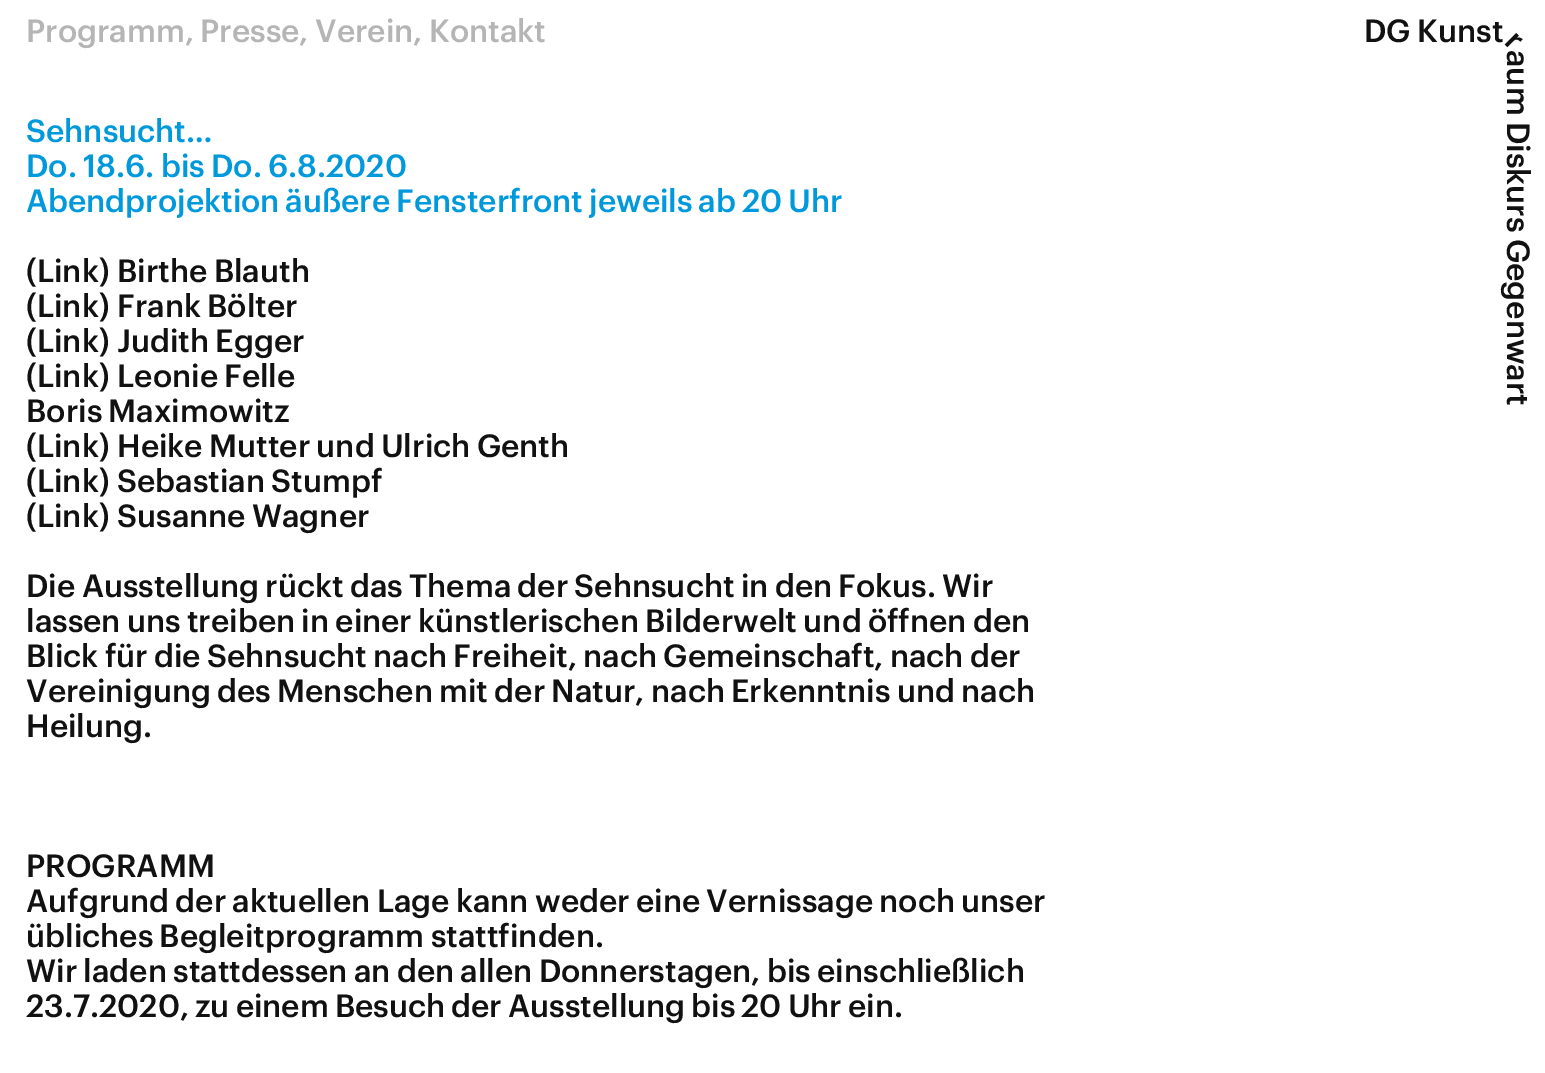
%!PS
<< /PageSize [1545 1073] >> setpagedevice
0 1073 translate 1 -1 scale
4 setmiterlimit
1 setgray
0 0 1545 1073 rectfill
/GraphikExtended-Medium [31.5 0 0 -31.5 0 0] selectfont
0.706 0.71 0.706 setrgbcolor
26 42 moveto (Programm,) show
200 42 moveto (Presse,) show
315 42 moveto (Verein,) show
429 42 moveto (Kontakt) show
0.067 setgray
1364 42 moveto -1.25 0 32 (DG Kunst) widthshow
gsave 1503 43 translate 45 rotate 0 0 moveto (r) show grestore
gsave 1507 50 translate 90 rotate 0 0 moveto -1.25 0 32 (aum Diskurs Gegenwart) widthshow grestore
0 0.6 0.863 setrgbcolor
26 142 moveto (Sehnsucht…) show
26 177 moveto -1.25 0 32 (Do. 18.6. bis Do. 6.8.2020) widthshow
26 212 moveto -1.5 0 32 (Abendprojektion äußere Fensterfront jeweils ab 20 Uhr) widthshow
0.067 setgray
26 282 moveto (\(Link\)) show
117 282 moveto -1.25 0 32 (Birthe Blauth) widthshow
26 317 moveto (\(Link\)) show
117 317 moveto -1.25 0 32 (Frank Bölter) widthshow
26 352 moveto (\(Link\)) show
117 352 moveto -1.25 0 32 (Judith Egger) widthshow
26 387 moveto (\(Link\)) show
117 387 moveto -1.25 0 32 (Leonie Felle) widthshow
26 422 moveto -1.25 0 32 (Boris Maximowitz) widthshow
26 457 moveto (\(Link\)) show
117 457 moveto -1.25 0 32 (Heike Mutter und Ulrich Genth) widthshow
26 492 moveto (\(Link\)) show
117 492 moveto -1.25 0 32 (Sebastian Stumpf) widthshow
26 527 moveto (\(Link\)) show
117 527 moveto -1.25 0 32 (Susanne Wagner) widthshow
26 597 moveto -1.25 0 32 (Die Ausstellung rückt das Thema der Sehnsucht in den Fokus. Wir) widthshow
26 632 moveto -1.25 0 32 (lassen uns treiben in einer künstlerischen Bilderwelt und öffnen den) widthshow
26 667 moveto -1.25 0 32 (Blick für die Sehnsucht nach Freiheit, nach Gemeinschaft, nach der) widthshow
26 702 moveto -1.25 0 32 (Vereinigung des Menschen mit der Natur, nach Erkenntnis und nach) widthshow
26 737 moveto (Heilung.) show
26 877 moveto (PROGRAMM) show
26 912 moveto -1.25 0 32 (Aufgrund der aktuellen Lage kann weder eine Vernissage noch unser) widthshow
26 947 moveto -1.25 0 32 (übliches Begleitprogramm stattfinden.) widthshow
26 982 moveto -1.25 0 32 (Wir laden stattdessen an den allen Donnerstagen, bis einschließlich) widthshow
26 1017 moveto -1.5 0 32 (23.7.2020, zu einem Besuch der Ausstellung bis 20 Uhr ein.) widthshow
showpage
